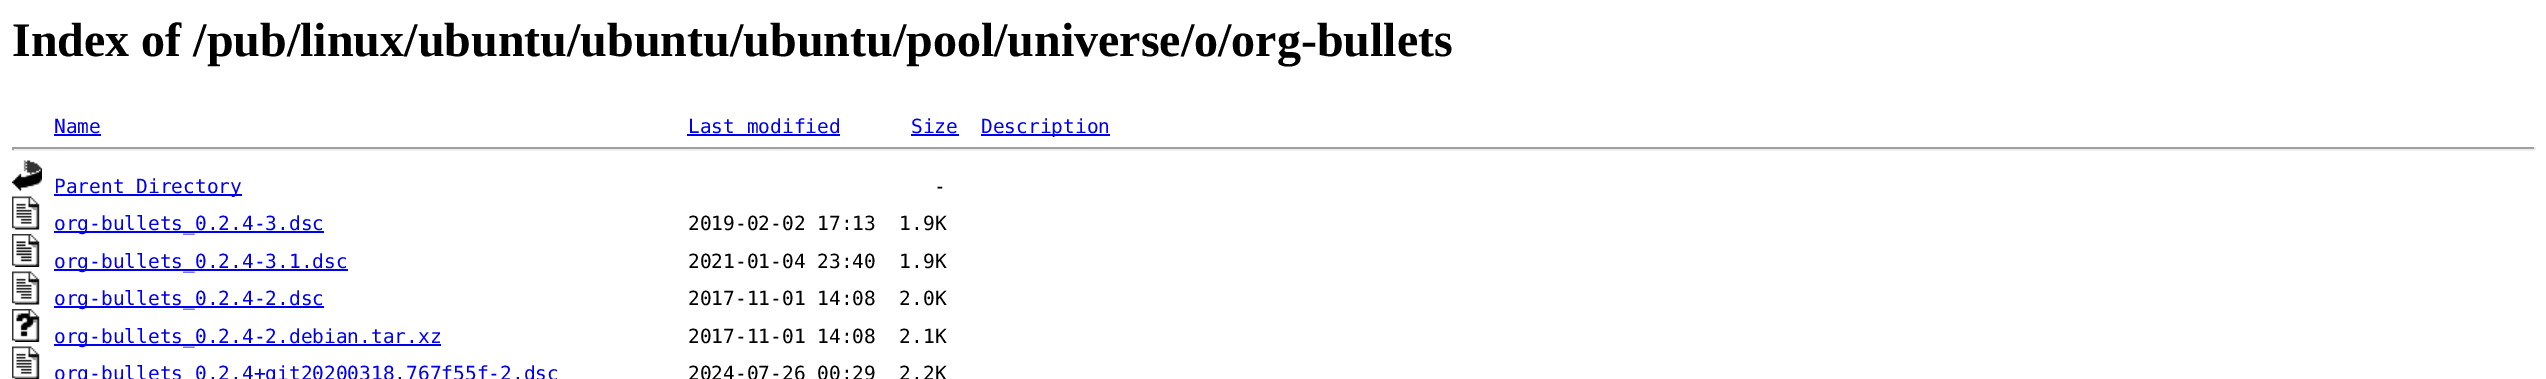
%!PS
<< /PageSize [2546 379] >> setpagedevice
/picture { 5 dict begin { /h /w /y /x /name } { exch def } forall
  gsave x y translate w h scale
  w h 8 [w 0 0 h 0 0] name (r) file false 3 colorimage grestore end } def
0 379 translate 1 -1 scale
4 setmiterlimit
1 setgray
0 0 2546 379 rectfill
/LiberationSerif-Bold [48 0 0 -48 0 0] selectfont
0 setgray
12 56 moveto (Index of /pub/linux/ubuntu/ubuntu/ubuntu/pool/universe/o/org-bullets) show
/DejaVuSansMono-Regular [19.5 0 0 -19.5 0 0] selectfont
0 0 0.933 setrgbcolor
54 133 moveto (Name) show
54 134 47 2 rectfill
688 133 moveto (Last modified) show
687 134 153 2 rectfill
911 133 moveto (Size) show
911 134 48 2 rectfill
981 134 129 2 rectfill
981 133 moveto (Description) show
0.624 setgray
12 147 2523 2 rectfill
0.933 setgray
2534 147 2 3 rectfill
12 149 2523 2 rectfill
0.624 setgray
12 147 2 3 rectfill
(img1.rgb) 12 160 30 31 picture
0 0 0.933 setrgbcolor
54 194 188 2 rectfill
54 193 moveto (Parent Directory) show
0 setgray
934 193 moveto (-) show
(img2.rgb) 12 196 28 34 picture
0 0 0.933 setrgbcolor
54 231 270 2 rectfill
54 230 moveto (org-bullets_0.2.4-3.dsc) show
0 setgray
688 230 moveto (2019-02-02 17:13  1.9K) show
(img3.rgb) 12 234 28 33 picture
0 0 0.933 setrgbcolor
54 269 294 2 rectfill
54 268 moveto (org-bullets_0.2.4-3.1.dsc) show
0 setgray
688 268 moveto (2021-01-04 23:40  1.9K) show
(img2.rgb) 12 271 28 34 picture
0 0 0.933 setrgbcolor
54 306 270 2 rectfill
54 305 moveto (org-bullets_0.2.4-2.dsc) show
0 setgray
688 305 moveto (2017-11-01 14:08  2.0K) show
(img4.rgb) 12 309 28 33 picture
0 0 0.933 setrgbcolor
54 344 387 2 rectfill
54 343 moveto (org-bullets_0.2.4-2.debian.tar.xz) show
0 setgray
688 343 moveto (2017-11-01 14:08  2.1K) show
(img5.rgb) 12 346 28 33 picture
0 0 0.933 setrgbcolor
54 380 moveto (org-bullets_0.2.4+git20200318.767f55f-2.dsc) show
0 setgray
688 380 moveto (2024-07-26 00:29  2.2K) show
showpage
